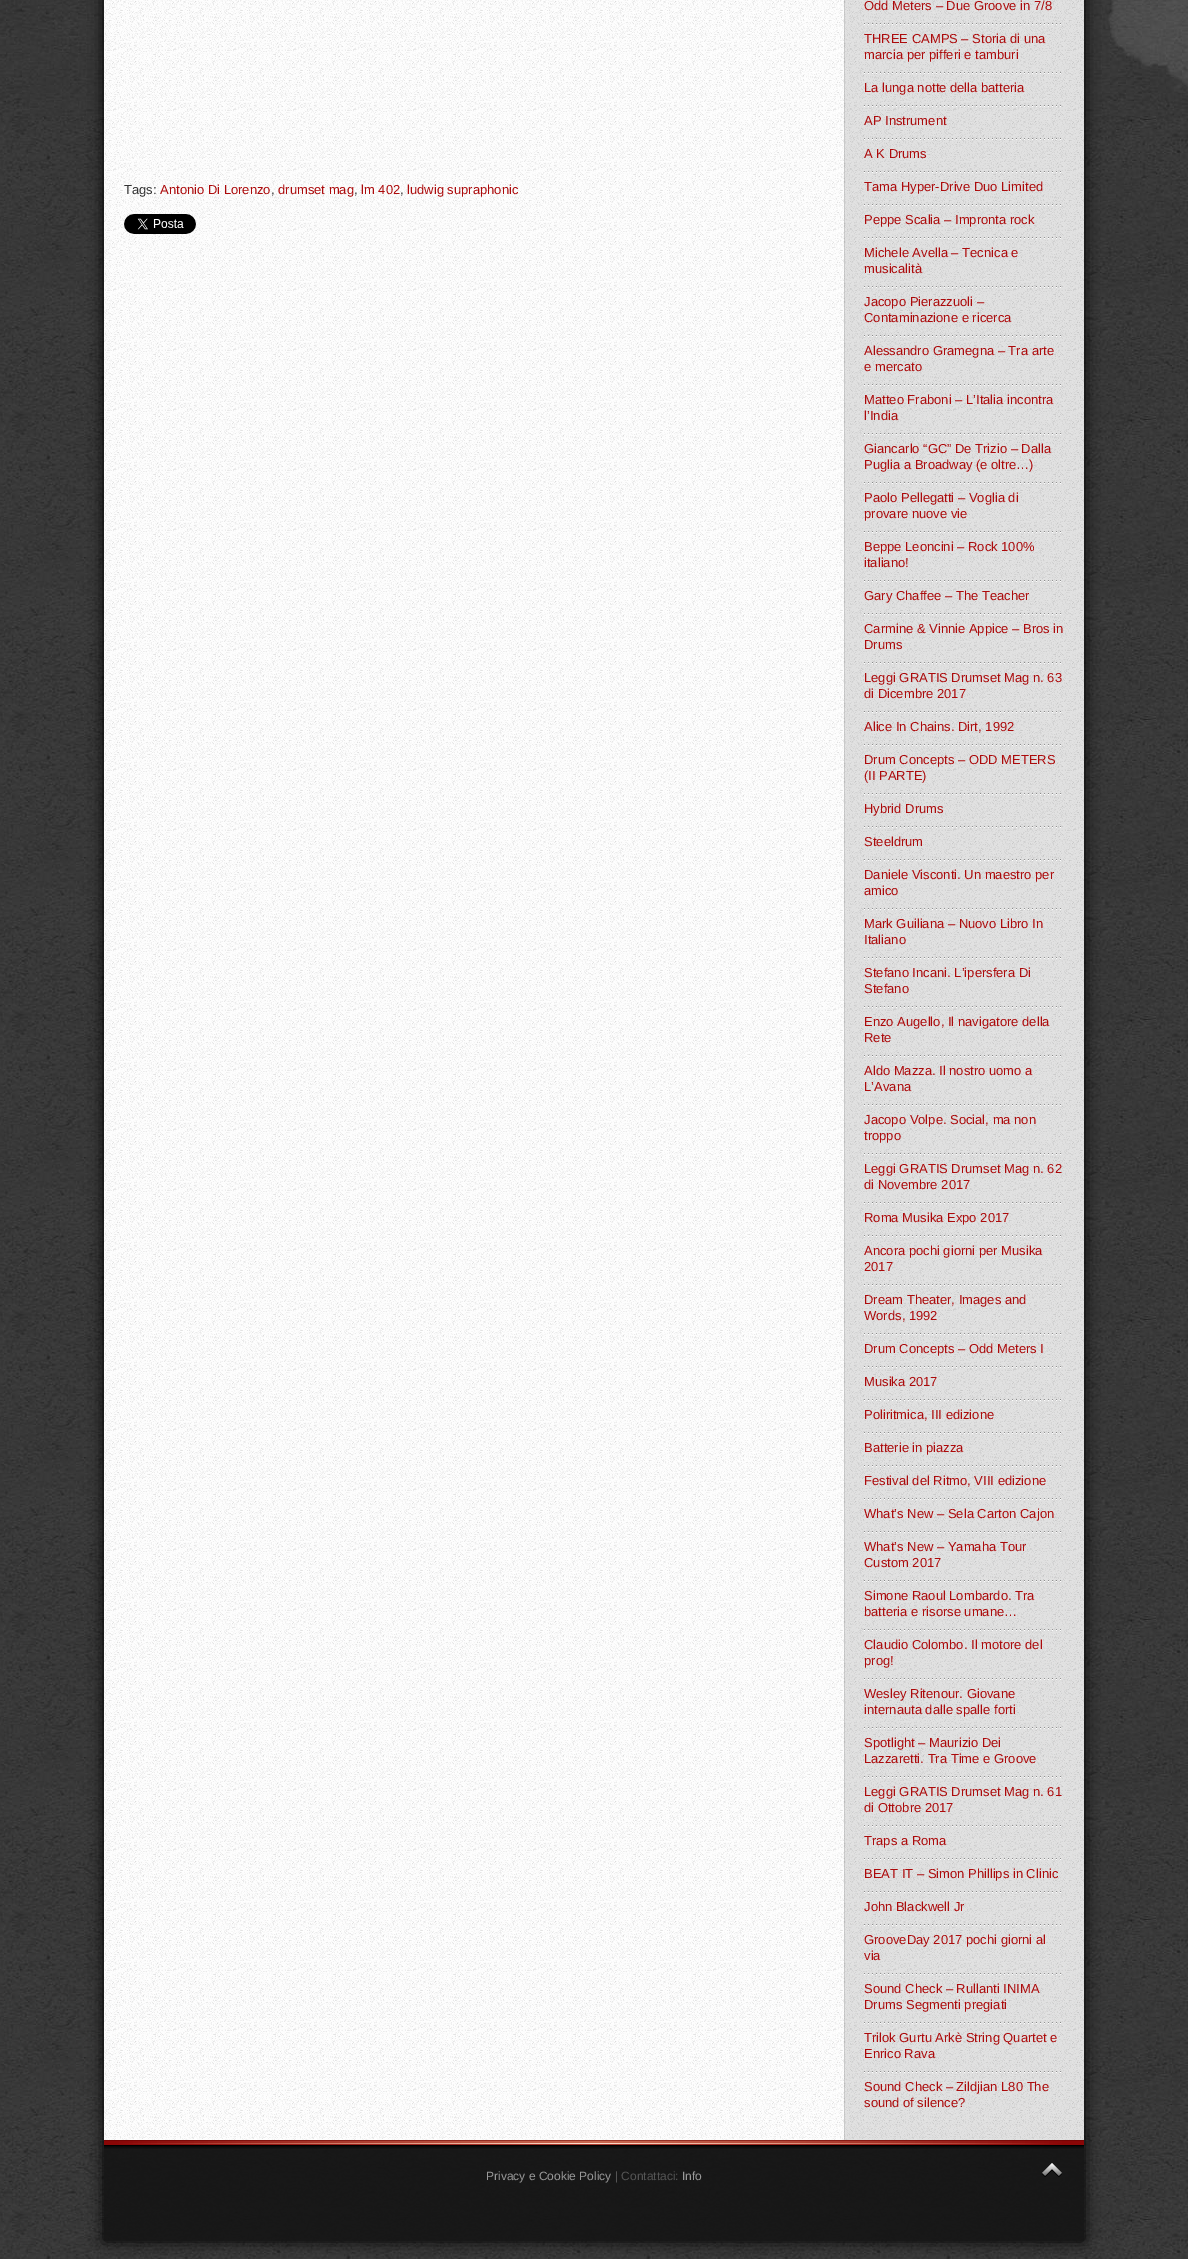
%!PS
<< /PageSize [1188 2259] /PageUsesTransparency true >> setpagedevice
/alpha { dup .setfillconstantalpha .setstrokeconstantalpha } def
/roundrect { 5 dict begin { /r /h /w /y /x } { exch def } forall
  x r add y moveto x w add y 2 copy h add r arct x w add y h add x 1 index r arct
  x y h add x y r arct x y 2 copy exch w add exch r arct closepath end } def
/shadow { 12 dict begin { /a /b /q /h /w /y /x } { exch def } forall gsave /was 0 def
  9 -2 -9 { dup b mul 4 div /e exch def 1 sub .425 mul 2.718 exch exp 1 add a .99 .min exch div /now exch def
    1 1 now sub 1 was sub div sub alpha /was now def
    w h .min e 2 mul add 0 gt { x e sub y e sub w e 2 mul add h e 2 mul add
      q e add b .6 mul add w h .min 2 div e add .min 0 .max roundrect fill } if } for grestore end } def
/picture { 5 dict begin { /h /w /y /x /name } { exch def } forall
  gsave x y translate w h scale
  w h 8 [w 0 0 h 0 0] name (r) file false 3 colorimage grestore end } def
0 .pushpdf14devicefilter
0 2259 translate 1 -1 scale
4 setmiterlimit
1 setgray
0 0 1188 2259 rectfill
(img1.rgb) 0 116 1188 2143 picture
(img2.rgb) 0 0 1188 116 picture
gsave
newpath 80 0 moveto 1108 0 lineto 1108 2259 lineto 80 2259 lineto closepath 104 -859 moveto 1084 -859 lineto 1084 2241 lineto 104 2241 lineto closepath eoclip newpath
0 setgray
104 -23 980 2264 0 7.5 1 shadow
grestore
0.9 alpha
0.078 setgray
104 2146 980 95 rectfill
1 alpha
(img3.rgb) 104 2140 980 9 picture
(img4.rgb) 104 0 980 2140 picture
/LiberationSans-Regular [13 0 0 -13 0 0] selectfont
0.2 setgray
124 194 moveto (Tags:) show
0.675 0.039 0.043 setrgbcolor
160 194 moveto (Antonio Di Lorenzo) show
0.2 setgray
271 194 moveto (,) show
0.675 0.039 0.043 setrgbcolor
278 194 moveto (drumset mag) show
0.2 setgray
354 194 moveto (,) show
0.675 0.039 0.043 setrgbcolor
361 194 moveto (lm 402) show
0.2 setgray
400 194 moveto (,) show
0.675 0.039 0.043 setrgbcolor
407 194 moveto (ludwig supraphonic) show
(img5.rgb) 124 214 72 20 picture
0.08 alpha
0 setgray
844 0 240 2140 rectfill
0.1 alpha
844 0 1 2140 rectfill
0.04 alpha
0.102 setgray
844 0 240 2140 rectfill
1 alpha
0.675 0.039 0.043 setrgbcolor
864 10 moveto (Odd Meters – Due Groove in 7/8) show
(img6.rgb) 864 23 197 2 picture
864 43 moveto (THREE CAMPS – Storia di una) show
864 59 moveto (marcia per pifferi e tamburi) show
(img7.rgb) 864 72 197 2 picture
864 92 moveto (La lunga notte della batteria) show
(img8.rgb) 864 105 197 2 picture
864 125 moveto (AP Instrument) show
(img9.rgb) 864 138 197 2 picture
864 158 moveto (A K Drums) show
(img10.rgb) 864 171 197 2 picture
864 191 moveto (Tama Hyper-Drive Duo Limited) show
(img11.rgb) 864 204 197 2 picture
864 224 moveto (Peppe Scalia – Impronta rock) show
(img12.rgb) 864 237 197 2 picture
864 257 moveto (Michele Avella – Tecnica e) show
864 273 moveto (musicalità) show
(img13.rgb) 864 286 197 2 picture
864 306 moveto (Jacopo Pierazzuoli –) show
864 322 moveto (Contaminazione e ricerca) show
(img14.rgb) 864 335 197 2 picture
864 355 moveto (Alessandro Gramegna – Tra arte) show
864 371 moveto (e mercato) show
(img11.rgb) 864 384 197 2 picture
864 404 moveto (Matteo Fraboni – L’Italia incontra) show
864 420 moveto (l’India) show
(img15.rgb) 864 433 197 2 picture
864 453 moveto (Giancarlo “GC” De Trizio – Dalla) show
864 469 moveto (Puglia a Broadway \(e oltre…\)) show
(img16.rgb) 864 482 197 2 picture
864 502 moveto (Paolo Pellegatti – Voglia di) show
864 518 moveto (provare nuove vie) show
(img10.rgb) 864 531 197 2 picture
864 551 moveto (Beppe Leoncini – Rock 100%) show
864 567 moveto (italiano!) show
(img17.rgb) 864 580 197 2 picture
864 600 moveto (Gary Chaffee – The Teacher) show
(img15.rgb) 864 613 197 2 picture
864 633 moveto (Carmine & Vinnie Appice – Bros in) show
864 649 moveto (Drums) show
(img16.rgb) 864 662 197 2 picture
864 682 moveto (Leggi GRATIS Drumset Mag n. 63) show
864 698 moveto (di Dicembre 2017) show
(img10.rgb) 864 711 197 2 picture
864 731 moveto (Alice In Chains. Dirt, 1992) show
(img11.rgb) 864 744 197 2 picture
864 764 moveto (Drum Concepts – ODD METERS) show
864 780 moveto (\(II PARTE\)) show
(img15.rgb) 864 793 197 2 picture
864 813 moveto (Hybrid Drums) show
(img13.rgb) 864 826 197 2 picture
864 846 moveto (Steeldrum) show
(img18.rgb) 864 859 197 2 picture
864 879 moveto (Daniele Visconti. Un maestro per) show
864 895 moveto (amico) show
(img19.rgb) 864 908 197 2 picture
864 928 moveto (Mark Guiliana – Nuovo Libro In) show
864 944 moveto (Italiano) show
(img12.rgb) 864 957 197 2 picture
864 977 moveto (Stefano Incani. L’ipersfera Di) show
864 993 moveto (Stefano) show
(img13.rgb) 864 1006 197 2 picture
864 1026 moveto (Enzo Augello, Il navigatore della) show
864 1042 moveto (Rete) show
(img14.rgb) 864 1055 197 2 picture
864 1075 moveto (Aldo Mazza. Il nostro uomo a) show
864 1091 moveto (L’Avana) show
(img11.rgb) 864 1104 197 2 picture
864 1124 moveto (Jacopo Volpe. Social, ma non) show
864 1140 moveto (troppo) show
(img15.rgb) 864 1153 197 2 picture
864 1173 moveto (Leggi GRATIS Drumset Mag n. 62) show
864 1189 moveto (di Novembre 2017) show
(img16.rgb) 864 1202 197 2 picture
864 1222 moveto (Roma Musika Expo 2017) show
(img14.rgb) 864 1235 197 2 picture
864 1255 moveto (Ancora pochi giorni per Musika) show
864 1271 moveto (2017) show
(img11.rgb) 864 1284 197 2 picture
864 1304 moveto (Dream Theater, Images and) show
864 1320 moveto (Words, 1992) show
(img15.rgb) 864 1333 197 2 picture
864 1353 moveto (Drum Concepts – Odd Meters I) show
(img13.rgb) 864 1366 197 2 picture
864 1386 moveto (Musika 2017) show
(img18.rgb) 864 1399 197 2 picture
864 1419 moveto (Poliritmica, III edizione) show
(img20.rgb) 864 1432 197 2 picture
864 1452 moveto (Batterie in piazza) show
(img21.rgb) 864 1465 197 2 picture
864 1485 moveto (Festival del Ritmo, VIII edizione) show
(img22.rgb) 864 1498 197 2 picture
864 1518 moveto (What’s New – Sela Carton Cajon) show
(img23.rgb) 864 1531 197 2 picture
864 1551 moveto (What’s New – Yamaha Tour) show
864 1567 moveto (Custom 2017) show
(img24.rgb) 864 1580 197 2 picture
864 1600 moveto (Simone Raoul Lombardo. Tra) show
864 1616 moveto (batteria e risorse umane…) show
(img25.rgb) 864 1629 197 2 picture
864 1649 moveto (Claudio Colombo. Il motore del) show
864 1665 moveto (prog!) show
(img22.rgb) 864 1678 197 2 picture
864 1698 moveto (Wesley Ritenour. Giovane) show
864 1714 moveto (internauta dalle spalle forti) show
(img26.rgb) 864 1727 197 2 picture
864 1747 moveto (Spotlight – Maurizio Dei) show
864 1763 moveto (Lazzaretti. Tra Time e Groove) show
(img27.rgb) 864 1776 197 2 picture
864 1796 moveto (Leggi GRATIS Drumset Mag n. 61) show
864 1812 moveto (di Ottobre 2017) show
(img21.rgb) 864 1825 197 2 picture
864 1845 moveto (Traps a Roma) show
(img22.rgb) 864 1858 197 2 picture
864 1878 moveto (BEAT IT – Simon Phillips in Clinic) show
(img23.rgb) 864 1891 197 2 picture
864 1911 moveto (John Blackwell Jr) show
(img28.rgb) 864 1924 197 2 picture
864 1944 moveto (GrooveDay 2017 pochi giorni al) show
864 1960 moveto (via) show
(img29.rgb) 864 1973 197 2 picture
864 1993 moveto (Sound Check – Rullanti INIMA) show
864 2009 moveto (Drums Segmenti pregiati) show
(img30.rgb) 864 2022 197 2 picture
864 2042 moveto (Trilok Gurtu Arkè String Quartet e) show
864 2058 moveto (Enrico Rava) show
(img23.rgb) 864 2071 197 2 picture
864 2091 moveto (Sound Check – Zildjian L80 The) show
864 2107 moveto (sound of silence?) show
/LiberationSans-Regular [12 0 0 -12 0 0] selectfont
0.6 setgray
486 2180 moveto (Privacy e Cookie Policy) show
0.333 setgray
615 2180 moveto (| Contattaci:) show
0.6 setgray
682 2180 moveto (Info) show
(img31.rgb) 1042 2163 20 14 picture
.poppdf14devicefilter showpage
